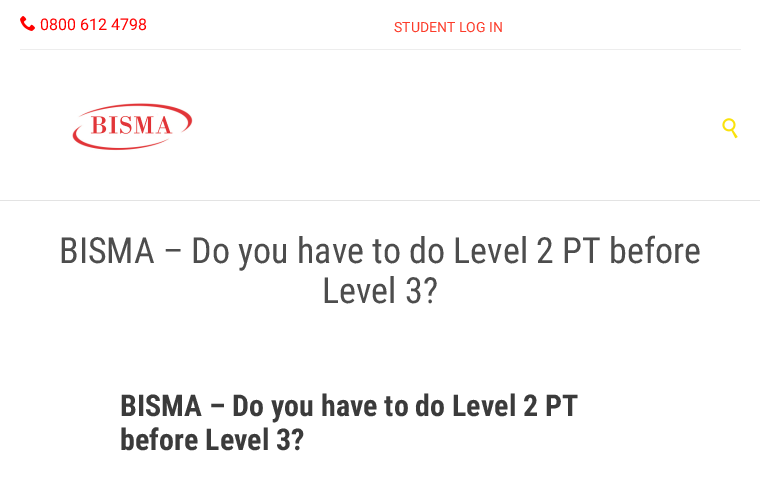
%!PS
<< /PageSize [760 484] >> setpagedevice
/picture { 5 dict begin { /h /w /y /x /name } { exch def } forall
  gsave x y translate w h scale
  w h 8 [w 0 0 h 0 0] name (r) file false 3 colorimage grestore end } def
0 484 translate 1 -1 scale
4 setmiterlimit
1 setgray
0 0 760 484 rectfill
0.89 setgray
0 200 760 1 rectfill
(img1.rgb) 20 16 15 15 picture
/Roboto-Regular [16 0 0 -16 0 0] selectfont
1 0 0 setrgbcolor
40 30 moveto (0800 612 4798) show
0.929 setgray
20 49 721 1 rectfill
/Roboto-Regular [14 0 0 -14 0 0] selectfont
0.988 0.235 0.165 setrgbcolor
394 32 moveto (STUDENT LOG IN) show
(img2.rgb) 72 103 121 48 picture
(img3.rgb) 722 118 16 21 picture
/RobotoCondensed-Regular [36 0 0 -36 0 0] selectfont
0.302 setgray
59 263 moveto (BISMA – Do you have to do Level 2 PT before) show
322 303 moveto (Level 3?) show
/RobotoCondensed-Bold [30 0 0 -30 0 0] selectfont
0.231 setgray
120 416 moveto (BISMA – Do you have to do Level 2 PT) show
120 450 moveto (before Level 3?) show
showpage
